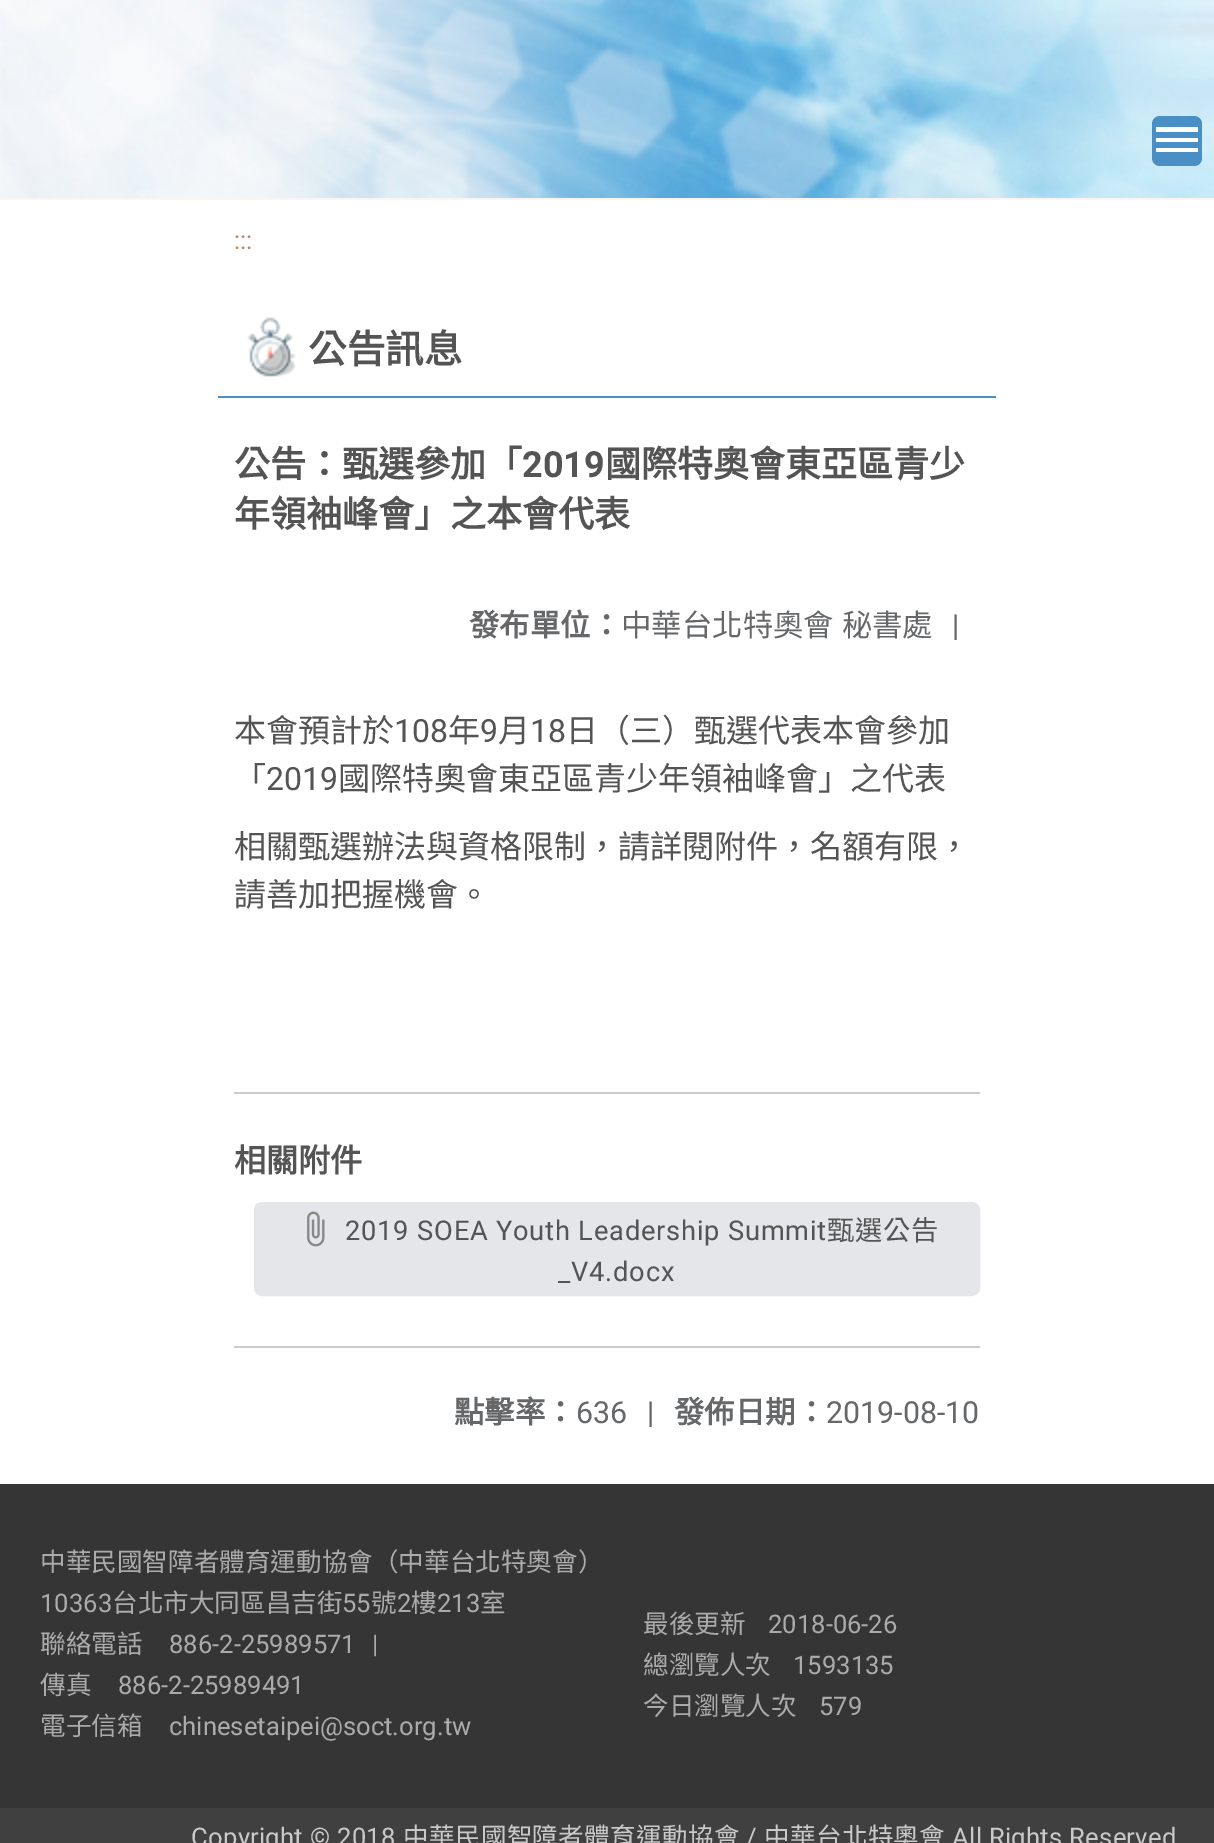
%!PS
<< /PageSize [1214 1843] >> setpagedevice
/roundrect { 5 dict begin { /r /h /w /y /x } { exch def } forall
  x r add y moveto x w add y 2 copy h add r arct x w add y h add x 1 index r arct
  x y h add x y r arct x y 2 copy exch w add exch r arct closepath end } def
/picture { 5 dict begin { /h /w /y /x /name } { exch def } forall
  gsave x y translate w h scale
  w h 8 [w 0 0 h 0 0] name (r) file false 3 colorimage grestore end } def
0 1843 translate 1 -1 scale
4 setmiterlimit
1 setgray
0 0 1214 1843 rectfill
(img1.rgb) 0 0 1214 198 picture
0.988 0.957 0.937 setrgbcolor
0 198 1214 2 rectfill
0.286 0.561 0.773 setrgbcolor
1152 116 50 50 8 roundrect fill
1 setgray
newpath 1156 127 moveto 1198 127 lineto 1198 132 lineto 1156 132 lineto closepath 1156 138 moveto 1198 138 lineto 1198 142 lineto 1156 142 lineto closepath 1156 148 moveto 1198 148 lineto 1198 152 lineto 1156 152 lineto closepath fill
/Roboto-Regular [25.6 0 0 -25.6 0 0] selectfont
0.714 0.553 0.478 setrgbcolor
234 249 moveto (:::) show
(img2.rgb) 247 317 49 60 picture
0.286 0.557 0.773 setrgbcolor
218 396 778 2 rectfill
/NotoSansCJKTC-Bold [38.5 0 0 -38.5 0 0] selectfont
0.329 setgray
308 363 moveto (公告訊息) show
/NotoSansCJKTC-Bold [36 0 0 -36 0 0] selectfont
234 477 moveto (公告：甄選參加「) show
/Roboto-Bold [36 0 0 -36 0 0] selectfont
522 477 moveto (2019) show
/NotoSansCJKTC-Bold [36 0 0 -36 0 0] selectfont
605 477 moveto (國際特奧會東亞區青少) show
234 527 moveto (年領袖峰會」之本會代表) show
/NotoSansCJKTC-Bold [30.4 0 0 -30.4 0 0] selectfont
0.396 0.404 0.412 setrgbcolor
469 636 moveto (發布單位：) show
/NotoSansCJKTC-Regular [30.4 0 0 -30.4 0 0] selectfont
621 636 moveto 1 0 32 (中華台北特奧會 秘書處) widthshow
/Roboto-Regular [30.4 0 0 -30.4 0 0] selectfont
952 636 moveto (|) show
/NotoSansCJKTC-Regular [32 0 0 -32 0 0] selectfont
0.329 setgray
234 742 moveto (本會預計於) show
/Roboto-Regular [32 0 0 -32 0 0] selectfont
394 742 moveto (108) show
/NotoSansCJKTC-Regular [32 0 0 -32 0 0] selectfont
448 742 moveto (年) show
/Roboto-Regular [32 0 0 -32 0 0] selectfont
480 742 moveto (9) show
/NotoSansCJKTC-Regular [32 0 0 -32 0 0] selectfont
498 742 moveto (月) show
/Roboto-Regular [32 0 0 -32 0 0] selectfont
530 742 moveto (18) show
/NotoSansCJKTC-Regular [32 0 0 -32 0 0] selectfont
566 742 moveto (日（三）甄選代表本會參加) show
234 790 moveto (「) show
/Roboto-Regular [32 0 0 -32 0 0] selectfont
266 790 moveto (2019) show
/NotoSansCJKTC-Regular [32 0 0 -32 0 0] selectfont
338 790 moveto (國際特奧會東亞區青少年領袖峰會」之代表) show
234 858 moveto (相關甄選辦法與資格限制，請詳閱附件，名額有限，) show
234 906 moveto (請善加把握機會。) show
0.8 setgray
234 1092 746 2 rectfill
/NotoSansCJKTC-Bold [32 0 0 -32 0 0] selectfont
0.329 setgray
234 1172 moveto (相關附件) show
0.898 0.902 0.914 setrgbcolor
255 1203 724 92 7 roundrect gsave fill grestore
2 setlinewidth
stroke
(img3.rgb) 307 1211 18 36 picture
/Roboto-Regular [27.25 0 0 -27.25 0 0] selectfont
0.329 setgray
345 1240 moveto 0.8 0 (2019 SOEA Youth Leadership Summit) ashow
/NotoSansCJKTC-Regular [27.25 0 0 -27.25 0 0] selectfont
827 1240 moveto 0.8 0 (甄選公告) ashow
/Roboto-Regular [27.25 0 0 -27.25 0 0] selectfont
558 1281 moveto 0.8 0 (_V4.docx) ashow
0.8 setgray
234 1346 746 2 rectfill
/NotoSansCJKTC-Bold [30.4 0 0 -30.4 0 0] selectfont
0.396 0.404 0.412 setrgbcolor
454 1423 moveto (點擊率：) show
/Roboto-Regular [30.4 0 0 -30.4 0 0] selectfont
576 1423 moveto (636) show
647 1423 moveto (|) show
/NotoSansCJKTC-Bold [30.4 0 0 -30.4 0 0] selectfont
674 1423 moveto (發佈日期：) show
/Roboto-Regular [30.4 0 0 -30.4 0 0] selectfont
826 1423 moveto (2019-08-10) show
0.208 setgray
0 1484 1214 324 rectfill
/NotoSansCJKTC-Regular [25.6 0 0 -25.6 0 0] selectfont
0.671 setgray
40 1571 moveto (中華民國智障者體育運動協會（中華台北特奧會）) show
/Roboto-Regular [25.6 0 0 -25.6 0 0] selectfont
40 1612 moveto (10363) show
/NotoSansCJKTC-Regular [25.6 0 0 -25.6 0 0] selectfont
112 1612 moveto (台北市大同區昌吉街) show
/Roboto-Regular [25.6 0 0 -25.6 0 0] selectfont
342 1612 moveto (55) show
/NotoSansCJKTC-Regular [25.6 0 0 -25.6 0 0] selectfont
371 1612 moveto (號) show
/Roboto-Regular [25.6 0 0 -25.6 0 0] selectfont
397 1612 moveto (2) show
/NotoSansCJKTC-Regular [25.6 0 0 -25.6 0 0] selectfont
411 1612 moveto (樓) show
/Roboto-Regular [25.6 0 0 -25.6 0 0] selectfont
437 1612 moveto (213) show
/NotoSansCJKTC-Regular [25.6 0 0 -25.6 0 0] selectfont
480 1612 moveto (室) show
40 1653 moveto (聯絡電話) show
/Roboto-Regular [25.6 0 0 -25.6 0 0] selectfont
169 1653 moveto (886-2-25989571) show
372 1653 moveto (|) show
/NotoSansCJKTC-Regular [25.6 0 0 -25.6 0 0] selectfont
40 1694 moveto (傳真) show
/Roboto-Regular [25.6 0 0 -25.6 0 0] selectfont
118 1694 moveto (886-2-25989491) show
/NotoSansCJKTC-Regular [25.6 0 0 -25.6 0 0] selectfont
40 1735 moveto (電子信箱) show
/Roboto-Regular [25.6 0 0 -25.6 0 0] selectfont
169 1735 moveto (chinesetaipei@soct.org.tw) show
/NotoSansCJKTC-Regular [25.6 0 0 -25.6 0 0] selectfont
643 1633 moveto (最後更新) show
/Roboto-Regular [25.6 0 0 -25.6 0 0] selectfont
768 1633 moveto (2018-06-26) show
/NotoSansCJKTC-Regular [25.6 0 0 -25.6 0 0] selectfont
643 1674 moveto (總瀏覽人次) show
/Roboto-Regular [25.6 0 0 -25.6 0 0] selectfont
793 1674 moveto (1593135) show
/NotoSansCJKTC-Regular [25.6 0 0 -25.6 0 0] selectfont
643 1715 moveto (今日瀏覽人次) show
/Roboto-Regular [25.6 0 0 -25.6 0 0] selectfont
819 1715 moveto (579) show
0.251 setgray
0 1808 1214 35 rectfill
0.792 0.788 0.788 setrgbcolor
191 1846 moveto 0.3 0 (Copyright © 2018) ashow
/NotoSansCJKTC-Regular [25.6 0 0 -25.6 0 0] selectfont
403 1846 moveto 0.3 0 (中華民國智障者體育運動協會) ashow
/Roboto-Regular [25.6 0 0 -25.6 0 0] selectfont
746 1846 moveto 0.3 0 (/) ashow
/NotoSansCJKTC-Regular [25.6 0 0 -25.6 0 0] selectfont
764 1846 moveto 0.3 0 (中華台北特奧會) ashow
/Roboto-Regular [25.6 0 0 -25.6 0 0] selectfont
952 1846 moveto 0.3 0 (All Rights Reserved) ashow
showpage
